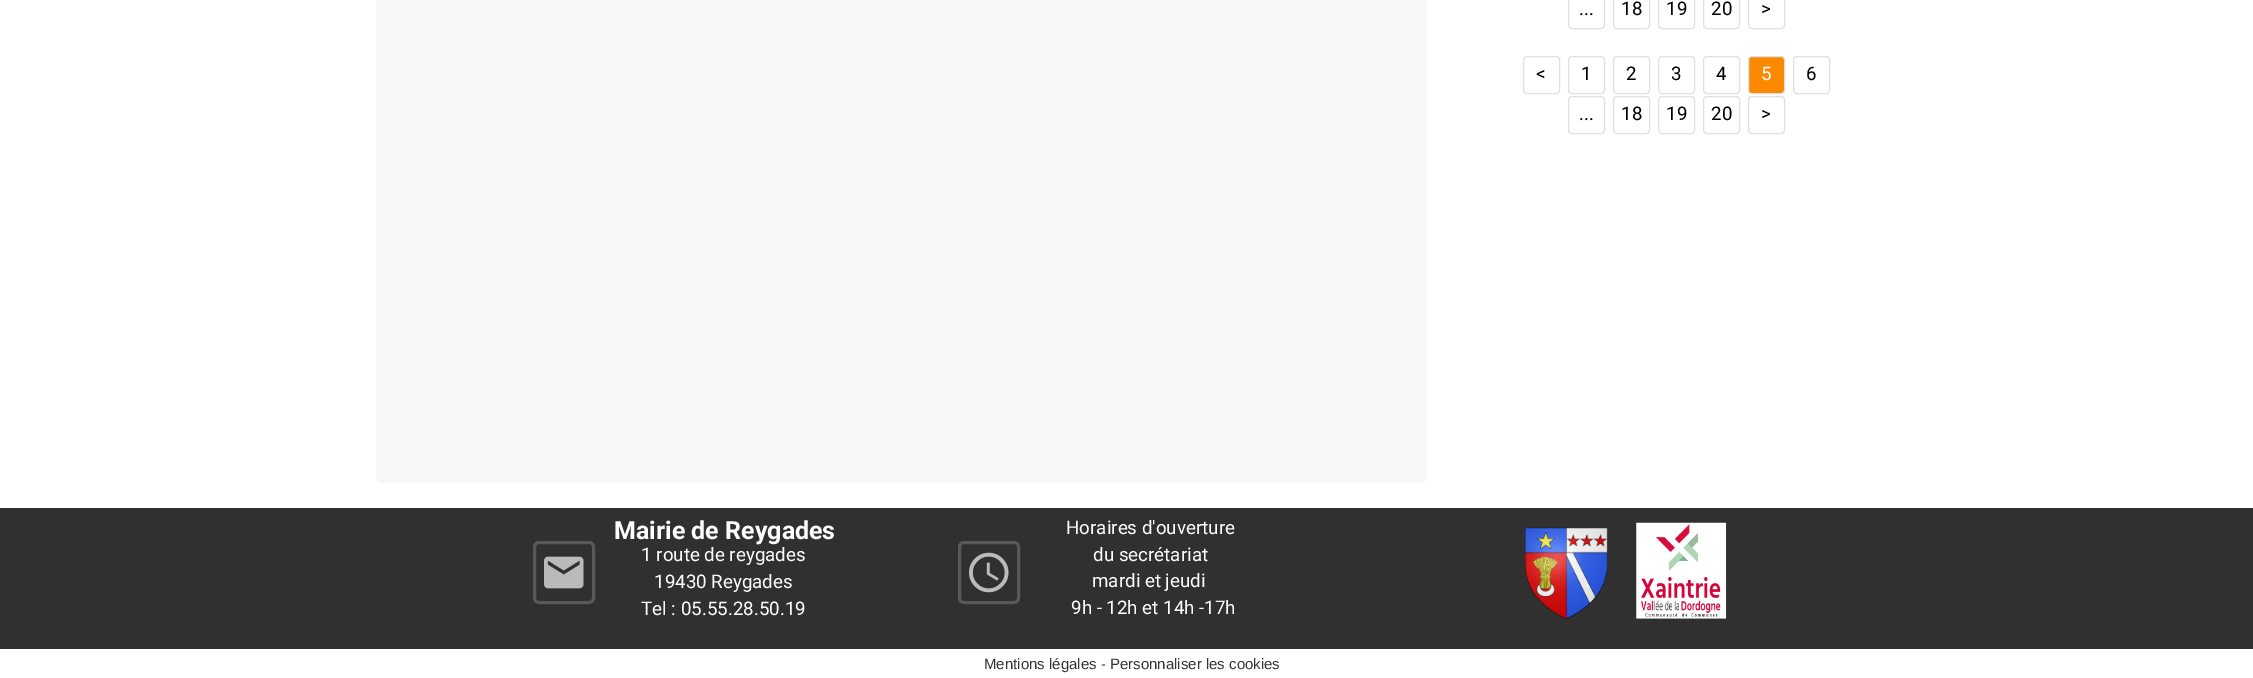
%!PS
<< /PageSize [2253 678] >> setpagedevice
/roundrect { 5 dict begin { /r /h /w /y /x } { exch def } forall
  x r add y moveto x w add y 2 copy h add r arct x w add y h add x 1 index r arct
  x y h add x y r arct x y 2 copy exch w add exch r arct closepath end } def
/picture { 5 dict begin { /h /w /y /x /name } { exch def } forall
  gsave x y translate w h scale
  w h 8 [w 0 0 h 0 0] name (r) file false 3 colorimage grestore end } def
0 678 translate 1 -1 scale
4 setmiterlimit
1 setgray
0 0 2253 678 rectfill
0.969 setgray
376 -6 1050 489 6 roundrect fill
0.878 setgray
1613.5 -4.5 36 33 3.5 roundrect stroke
/Roboto-Regular [18.75 0 0 -18.75 0 0] selectfont
0 setgray
1621 15 moveto (18) show
0.878 setgray
1658.5 -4.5 36 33 3.5 roundrect stroke
0 setgray
1666 15 moveto (19) show
0.878 setgray
1703.5 -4.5 36 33 3.5 roundrect stroke
0 setgray
1711 15 moveto (20) show
0.878 setgray
1748.5 -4.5 36 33 3.5 roundrect stroke
0 setgray
1761 15 moveto (>) show
0.878 setgray
1568.5 -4.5 36 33 3.5 roundrect stroke
0 setgray
1579 15 moveto (...) show
0.878 setgray
1523.5 56.5 36 37 3.5 roundrect stroke
0 setgray
1536 80 moveto (<) show
0.878 setgray
1568.5 56.5 36 37 3.5 roundrect stroke
0 setgray
1581 80 moveto (1) show
0.878 setgray
1613.5 56.5 36 37 3.5 roundrect stroke
0 setgray
1626 80 moveto (2) show
0.878 setgray
1658.5 56.5 36 37 3.5 roundrect stroke
0 setgray
1671 80 moveto (3) show
0.878 setgray
1703.5 56.5 36 37 3.5 roundrect stroke
0 setgray
1716 80 moveto (4) show
0.98 0.537 0 setrgbcolor
1748.5 56.5 36 37 3.5 roundrect gsave fill grestore
0.878 setgray
stroke
1 setgray
1761 80 moveto (5) show
0.878 setgray
1793.5 56.5 36 37 3.5 roundrect stroke
0 setgray
1806 80 moveto (6) show
0.878 setgray
1613.5 96.5 36 37 3.5 roundrect stroke
0 setgray
1621 120 moveto (18) show
0.878 setgray
1658.5 96.5 36 37 3.5 roundrect stroke
0 setgray
1666 120 moveto (19) show
0.878 setgray
1703.5 96.5 36 37 3.5 roundrect stroke
0 setgray
1711 120 moveto (20) show
0.878 setgray
1748.5 96.5 36 37 3.5 roundrect stroke
0 setgray
1761 120 moveto (>) show
0.878 setgray
1568.5 96.5 36 37 3.5 roundrect stroke
0 setgray
1579 120 moveto (...) show
0.188 setgray
0 508 2253 141 rectfill
0.349 setgray
3 setlinewidth
534.5 542.5 59 60 4.5 roundrect stroke
(img1.rgb) 544 556 40 33 picture
/Roboto-Bold [25 0 0 -25 0 0] selectfont
1 setgray
614 539 moveto (Mairie de Reygades) show
0.349 setgray
959.5 542.5 59 60 4.5 roundrect stroke
(img2.rgb) 969 552 40 41 picture
/Roboto-Regular [18.75 0 0 -18.75 0 0] selectfont
1 setgray
1066 534 moveto (Horaires d'ouverture) show
1093 561 moveto (du secrétariat) show
1092 587 moveto (mardi et jeudi) show
1071 614 moveto (9h - 12h et 14h -17h) show
(img3.rgb) 1525 527 83 92 picture
(img4.rgb) 1636 522 91 97 picture
641 561 moveto (1 route de reygades) show
654 588 moveto (19430 Reygades) show
641 615 moveto (Tel : 05.55.28.50.19) show
/LiberationSans-Regular [15 0 0 -15 0 0] selectfont
0.2 setgray
984 669 moveto (Mentions légales - Personnaliser les cookies) show
showpage
